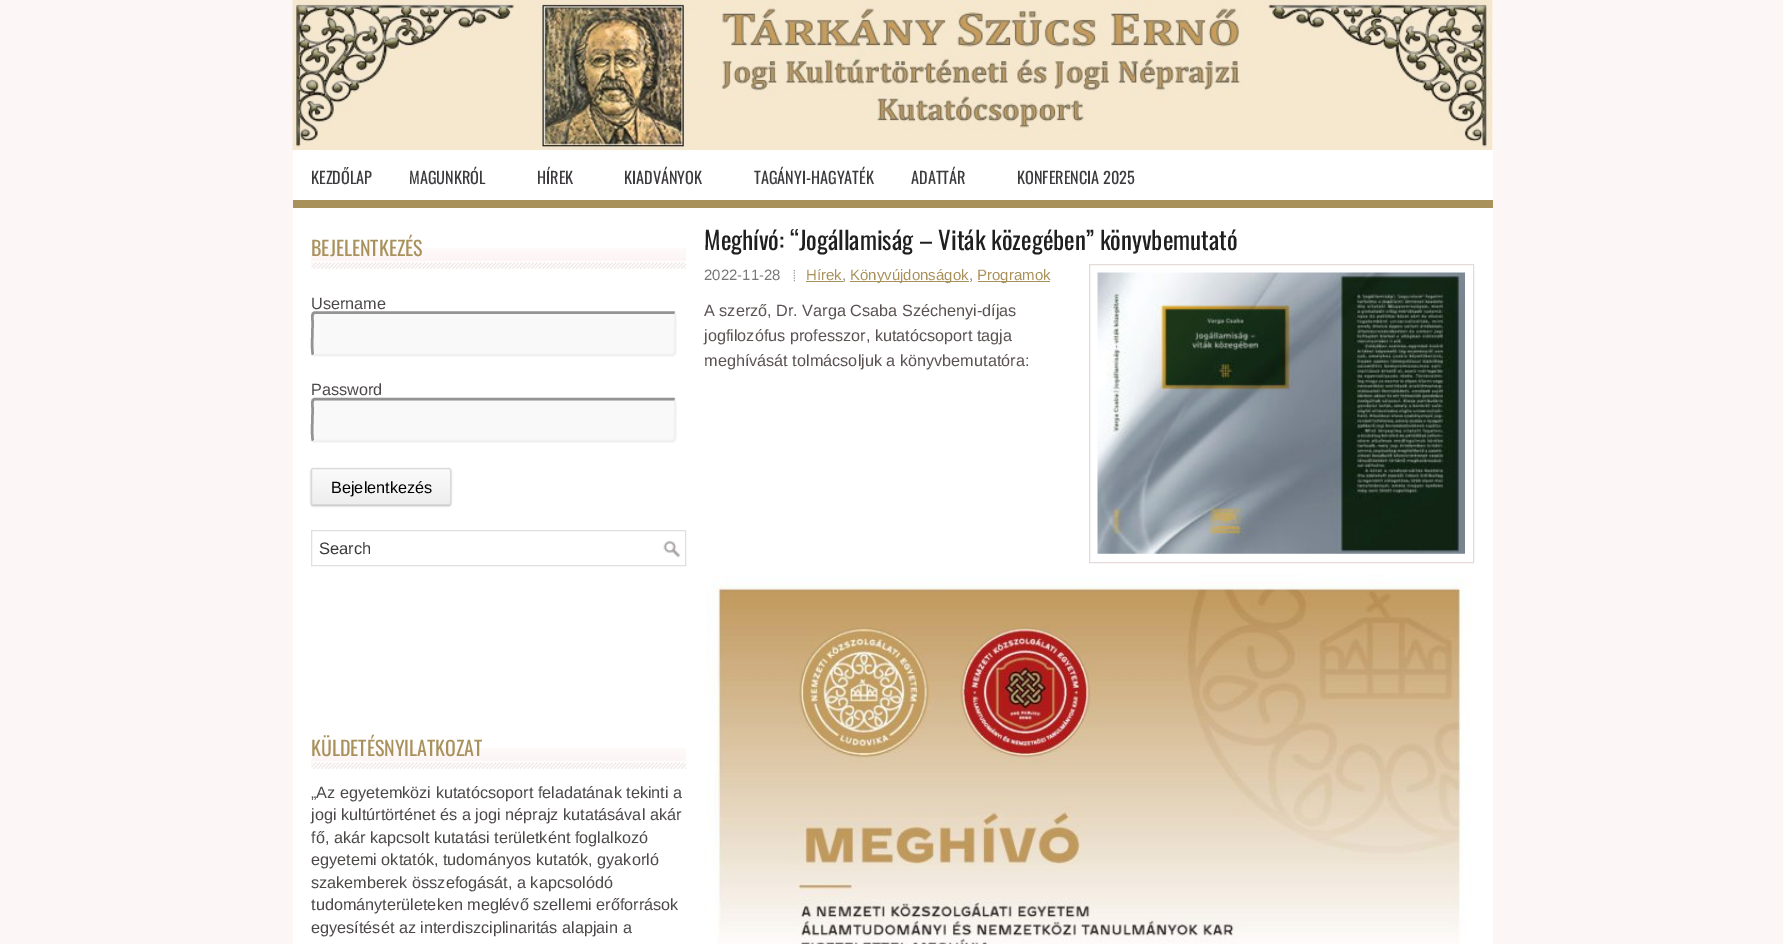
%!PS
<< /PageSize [1783 944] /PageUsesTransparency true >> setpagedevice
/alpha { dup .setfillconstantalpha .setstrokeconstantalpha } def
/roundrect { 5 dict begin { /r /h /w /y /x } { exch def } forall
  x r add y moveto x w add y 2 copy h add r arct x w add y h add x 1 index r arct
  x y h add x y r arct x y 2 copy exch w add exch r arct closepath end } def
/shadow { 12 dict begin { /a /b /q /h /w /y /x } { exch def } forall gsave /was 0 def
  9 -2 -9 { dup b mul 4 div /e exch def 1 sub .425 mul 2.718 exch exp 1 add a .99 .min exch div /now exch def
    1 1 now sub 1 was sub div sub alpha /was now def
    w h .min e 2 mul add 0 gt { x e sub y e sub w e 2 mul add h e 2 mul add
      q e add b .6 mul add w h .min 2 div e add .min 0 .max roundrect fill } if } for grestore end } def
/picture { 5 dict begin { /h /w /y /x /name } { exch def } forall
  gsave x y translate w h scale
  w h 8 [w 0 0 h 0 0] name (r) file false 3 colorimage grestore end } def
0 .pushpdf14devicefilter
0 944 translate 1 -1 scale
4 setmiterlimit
0.988 0.965 0.965 setrgbcolor
0 0 1783 944 rectfill
1 setgray
293 0 1200 200 rectfill
(img1.rgb) 292 0 1201 150 picture
0.659 0.569 0.357 setrgbcolor
293 200 1200 8 rectfill
/Oswald-Regular [16.25 0 0 -16.25 0 0] selectfont
0.235 0.227 0.239 setrgbcolor
311 184 moveto (KEZDŐLAP) show
409 184 moveto (MAGUNKRÓL) show
537 184 moveto (HÍREK) show
624 184 moveto (KIADVÁNYOK) show
754 184 moveto (TAGÁNYI-HAGYATÉK) show
911 184 moveto (ADATTÁR) show
1017 184 moveto (KONFERENCIA 2025) show
1 setgray
293 208 1200 736 rectfill
(img2.rgb) 311 248 375 21 picture
/Oswald-Regular [20 0 0 -20 0 0] selectfont
0.659 0.569 0.357 setrgbcolor
311 256 moveto (BEJELENTKEZÉS) show
/LiberationSans-Regular [16.25 0 0 -16.25 0 0] selectfont
0.298 0.282 0.282 setrgbcolor
311 309 moveto (Username) show
0.976 setgray
311 311 365 45 4 roundrect fill
0.945 setgray
2.5 setlinewidth
newpath 674.5 313 moveto 676 315 675 336 675 340 curveto 675 346 lineto 675 347.5 676.5 355 672.5 355 curveto 314 355 lineto 313 354.5 lineto stroke
0.576 setgray
newpath 313 354.5 moveto 311.5 352.5 312.5 331.5 312.5 327.5 curveto 312.5 321 lineto 312.5 320 311 312.5 315 312.5 curveto 673.5 312.5 lineto 674.5 313 lineto stroke
0.298 0.282 0.282 setrgbcolor
311 395 moveto (Password) show
0.976 setgray
311 398 365 45 4 roundrect fill
0.945 setgray
newpath 674.5 399.5 moveto 676 401.5 675 422.5 675 426 curveto 675 432.5 lineto 675 434 676.5 441 672.5 441 curveto 314 441 lineto 313 440.5 lineto stroke
0.576 setgray
newpath 313 440.5 moveto 311.5 438.5 312.5 417.5 312.5 414 curveto 312.5 407.5 lineto 312.5 406 311 399 315 399 curveto 673.5 399 lineto 674.5 399.5 lineto stroke
0 setgray
311 469 140 37 2.5 1 0.3 shadow
gsave
311 468 140 37 2.5 roundrect clip newpath
gsave newpath 311 469 moveto 451 469 lineto 451 504 lineto 311 504 lineto closepath clip newpath
<< /ShadingType 2 /ColorSpace /DeviceRGB /Coords [381 469 381 504] /Extend [true true] /Function << /FunctionType 2 /Domain [0 1] /C0 [0.984 0.984 0.984] /C1 [0.933 0.933 0.933] /N 1 >> >> shfill grestore
grestore
0.851 setgray
1 setlinewidth
311.5 468.5 139 36 2 roundrect stroke
0 setgray
331 493 moveto (Bejelentkezés) show
(img3.rgb) 663 541 18 17 picture
0.882 0.875 0.875 setrgbcolor
311.5 530.5 374 35 rectstroke
/LiberationSans-Regular [16.5 0 0 -16.5 0 0] selectfont
0.235 0.227 0.239 setrgbcolor
319 554 moveto (Search) show
(img4.rgb) 311 748 375 21 picture
/Oswald-Regular [20 0 0 -20 0 0] selectfont
0.659 0.569 0.357 setrgbcolor
311 756 moveto (KÜLDETÉSNYILATKOZAT) show
/LiberationSans-Regular [16.25 0 0 -16.25 0 0] selectfont
0.298 0.282 0.282 setrgbcolor
311 798 moveto („Az egyetemközi kutatócsoport feladatának tekinti a) show
311 820 moveto (jogi kultúrtörténet és a jogi néprajz kutatásával akár) show
311 843 moveto (fő, akár kapcsolt kutatási területként foglalkozó) show
311 865 moveto (egyetemi oktatók, tudományos kutatók, gyakorló) show
311 888 moveto (szakemberek összefogását, a kapcsolódó) show
311 910 moveto (tudományterületeken meglévő szellemi erőforrások) show
311 933 moveto (egyesítését az interdiszciplinaritás alapjain a) show
/Oswald-Regular [25 0 0 -25 0 0] selectfont
0.122 setgray
704 250 moveto (Meghívó: “Jogállamiság – Viták közegében” könyvbemutató) show
/LiberationSans-Regular [15 0 0 -15 0 0] selectfont
0.471 0.463 0.463 setrgbcolor
704 280 moveto (2022-11-28) show
(img5.rgb) 793 270 2 12 picture
0.659 0.569 0.357 setrgbcolor
806 280 moveto (Hírek) show
0.471 0.463 0.463 setrgbcolor
842 280 moveto (,) show
0.659 0.569 0.357 setrgbcolor
806 281 37 1 rectfill
850 281 119 1 rectfill
850 280 moveto (Könyvújdonságok) show
0.471 0.463 0.463 setrgbcolor
969 280 moveto (,) show
0.659 0.569 0.357 setrgbcolor
978 281 72 1 rectfill
977 280 moveto (Programok) show
0.902 0.855 0.855 setrgbcolor
1089.5 264.5 384 298 rectstroke
(img6.rgb) 1097 272 368 282 picture
/LiberationSans-Regular [16.25 0 0 -16.25 0 0] selectfont
0.353 0.318 0.318 setrgbcolor
704 316 moveto (A szerző, Dr. Varga Csaba Széchenyi-díjas) show
704 341 moveto (jogfilozófus professzor, kutatócsoport tagja) show
704 366 moveto (meghívását tolmácsoljuk a könyvbemutatóra:) show
(img7.rgb) 705 575 766 369 picture
.poppdf14devicefilter showpage
